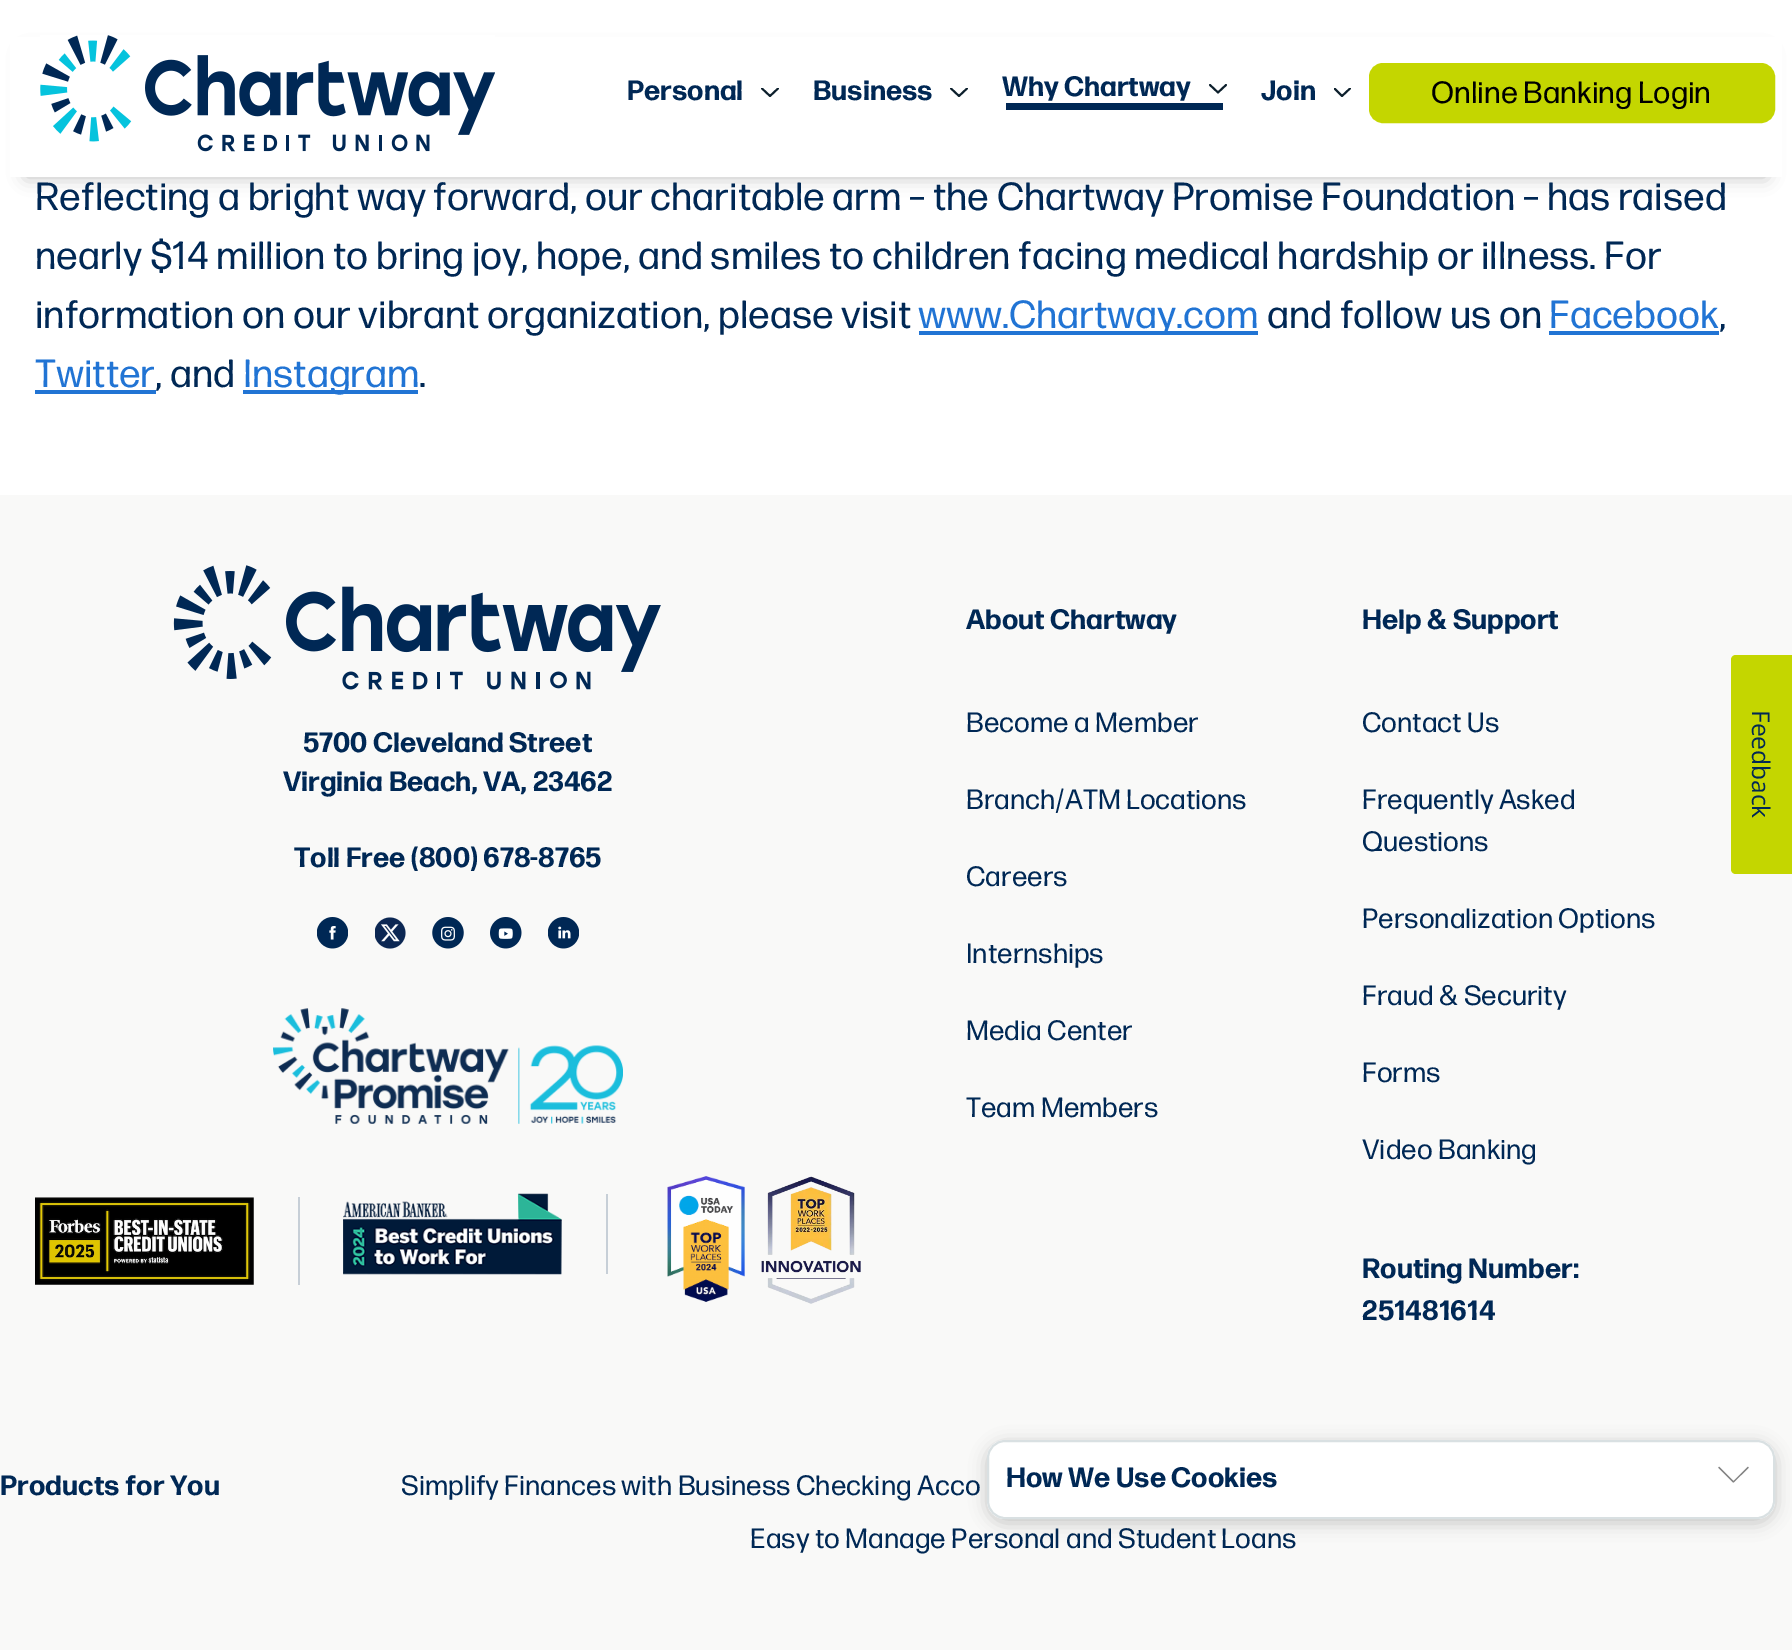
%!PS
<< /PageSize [1792 1650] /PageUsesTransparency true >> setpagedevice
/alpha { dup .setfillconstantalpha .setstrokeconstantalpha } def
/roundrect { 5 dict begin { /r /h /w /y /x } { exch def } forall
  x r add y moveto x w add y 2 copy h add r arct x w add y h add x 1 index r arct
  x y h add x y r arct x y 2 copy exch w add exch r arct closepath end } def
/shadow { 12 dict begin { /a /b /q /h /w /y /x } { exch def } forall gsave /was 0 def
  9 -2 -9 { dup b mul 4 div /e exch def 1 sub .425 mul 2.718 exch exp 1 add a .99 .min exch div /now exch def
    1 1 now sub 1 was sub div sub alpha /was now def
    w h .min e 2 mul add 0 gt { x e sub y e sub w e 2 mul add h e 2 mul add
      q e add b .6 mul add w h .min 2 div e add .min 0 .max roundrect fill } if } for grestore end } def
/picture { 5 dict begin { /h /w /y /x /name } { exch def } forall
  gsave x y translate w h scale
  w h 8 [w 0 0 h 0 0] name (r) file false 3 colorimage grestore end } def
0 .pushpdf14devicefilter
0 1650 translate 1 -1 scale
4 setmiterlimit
1 setgray
0 0 1792 1650 rectfill
0 setgray
26 53 1740 124 0 9 0.25 shadow
1 setgray
10 37 1772 140 rectfill
(img1.rgb) 40 35 455 117 picture
gsave
761 88 18 10 rectclip
0.047 0.122 0.173 setrgbcolor
1.9 setlinewidth
1 setlinecap
1 setlinejoin
newpath 762 88.5 moveto 770 96 lineto 778 88.5 lineto stroke
grestore
/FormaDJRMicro-Bold [28 0 0 -28 0 0] selectfont
0 0.157 0.333 setrgbcolor
627 100 moveto (Personal) show
gsave
950 88 18 10 rectclip
0.047 0.122 0.173 setrgbcolor
1.9 setlinewidth
1 setlinecap
1 setlinejoin
newpath 951 88.5 moveto 959 96 lineto 967 88.5 lineto stroke
grestore
813 100 moveto (Business) show
0.047 0.122 0.173 setrgbcolor
1.9 setlinewidth
1 setlinecap
1 setlinejoin
newpath 1210 85 moveto 1218 92.5 lineto 1226 85 lineto stroke
0 0.157 0.333 setrgbcolor
1006 103 217 7 rectfill
1002 96 moveto (Why Chartway) show
gsave
1334 88 17 10 rectclip
0.047 0.122 0.173 setrgbcolor
newpath 1334.5 88.5 moveto 1342 96 lineto 1350 88.5 lineto stroke
grestore
1261 100 moveto (Join) show
0.769 0.839 0 setrgbcolor
1371 65 402 56 12 roundrect gsave fill grestore
4 setlinewidth
0 setlinecap
0 setlinejoin
stroke
/FormaDJRMicro-Regular [30.75 0 0 -30.75 0 0] selectfont
0 setgray
1431 103 moveto (Online Banking Login) show
/FormaDJRMicro-Regular [39.2 0 0 -39.2 0 0] selectfont
0 0.157 0.333 setrgbcolor
35 210 moveto (Reflecting a bright way forward, our charitable arm – the Chartway Promise Foundation – has raised) show
35 269 moveto (nearly $14 million to bring joy, hope, and smiles to children facing medical hardship or illness. For) show
35 328 moveto (information on our vibrant organization, please visit) show
0.129 0.455 0.831 setrgbcolor
919 331 339 4 rectfill
918 328 moveto (www.Chartway.com) show
0 0.157 0.333 setrgbcolor
1267 328 moveto (and follow us on) show
0.129 0.455 0.831 setrgbcolor
1549 328 moveto (Facebook) show
1549 331 170 4 rectfill
0 0.157 0.333 setrgbcolor
1719 328 moveto (,) show
0.129 0.455 0.831 setrgbcolor
35 387 moveto (Twitter) show
35 390 121 4 rectfill
0 0.157 0.333 setrgbcolor
155 387 moveto (, and) show
0.129 0.455 0.831 setrgbcolor
243 390 175 4 rectfill
243 387 moveto (Instagram) show
0 0.157 0.333 setrgbcolor
419 387 moveto (.) show
0.976 0.976 0.973 setrgbcolor
0 495 1792 1155 rectfill
(img2.rgb) 173 565 488 125 picture
/FormaDJRMicro-Bold [28 0 0 -28 0 0] selectfont
0 0.157 0.333 setrgbcolor
303 752 moveto (5700 Cleveland Street) show
283 791 moveto (Virginia Beach, VA, 23462) show
294 867 moveto (Toll Free \(800\) 678-8765) show
(img3.rgb) 317 917 31 32 picture
(img4.rgb) 375 917 31 32 picture
(img5.rgb) 432 917 32 32 picture
(img6.rgb) 490 917 32 32 picture
(img7.rgb) 548 917 31 32 picture
(img8.rgb) 273 1008 350 116 picture
0.78 0.812 0.843 setrgbcolor
298 1197 2 88 rectfill
(img9.rgb) 35 1197 219 88 picture
606 1194 2 80 rectfill
(img10.rgb) 343 1193 219 82 picture
(img11.rgb) 667 1176 78 126 picture
(img12.rgb) 761 1176 100 128 picture
0 0.157 0.333 setrgbcolor
966 629 moveto (About Chartway) show
/FormaDJRMicro-Regular [28 0 0 -28 0 0] selectfont
966 732 moveto (Become a Member) show
966 809 moveto (Branch/ATM Locations) show
966 886 moveto (Careers) show
966 963 moveto (Internships) show
966 1040 moveto (Media Center) show
966 1117 moveto (Team Members) show
/FormaDJRMicro-Bold [28 0 0 -28 0 0] selectfont
1362 629 moveto (Help & Support) show
/FormaDJRMicro-Regular [28 0 0 -28 0 0] selectfont
1362 732 moveto (Contact Us) show
1362 809 moveto (Frequently Asked) show
1362 851 moveto (Questions) show
1362 928 moveto (Personalization Options) show
1362 1005 moveto (Fraud & Security) show
1362 1082 moveto (Forms) show
1362 1159 moveto (Video Banking) show
/FormaDJRMicro-Bold [28 0 0 -28 0 0] selectfont
1362 1278 moveto (Routing Number:) show
1362 1320 moveto (251481614) show
0 1495 moveto (Products for You) show
/FormaDJRMicro-Regular [28 0 0 -28 0 0] selectfont
401 1495 moveto (Simplify Finances with Business Checking Acco) show
750 1548 moveto (Easy to Manage Personal and Student Loans) show
gsave
newpath 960 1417 moveto 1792 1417 lineto 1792 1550 lineto 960 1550 lineto closepath 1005 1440 moveto 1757 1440 lineto 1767 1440 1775 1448 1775 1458 curveto 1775 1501 lineto 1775 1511 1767 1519 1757 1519 curveto 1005 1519 lineto 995 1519 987 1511 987 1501 curveto 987 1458 lineto 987 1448 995 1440 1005 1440 curveto closepath eoclip newpath
0 setgray
987 1444 788 79 18 8.5 0.2 shadow
grestore
0.98 alpha
1 setgray
987 1440 788 79 18 roundrect fill
0.847 0.875 0.882 setrgbcolor
2 setlinewidth
988 1441 786 77 17 roundrect stroke
/FormaDJRMicro-Bold [28 0 0 -28 0 0] selectfont
1 alpha
0 0.157 0.333 setrgbcolor
1006 1487 moveto (How We Use Cookies) show
0.51 setgray
newpath 1733 1482.5 moveto 1733.5 1482.5 lineto 1748.5 1468 lineto 1749 1467.5 1748 1466.5 1747.5 1467 curveto 1733.5 1481 lineto 1719.5 1467 lineto 1719 1466.5 1718 1467.5 1718.5 1468 curveto closepath fill
0.769 0.839 0 setrgbcolor
newpath 1792 655 moveto 1792 874 lineto 1736 874 lineto 1733 874 1731 872 1731 869 curveto 1731 660 lineto 1731 657 1733 655 1736 655 curveto closepath fill
/OpenSans-Regular [24.5 0 0 -24.5 0 0] selectfont
0 0.157 0.333 setrgbcolor
gsave 1752 710 translate 90 rotate 0 0 moveto (Feedback) show grestore
.poppdf14devicefilter showpage
